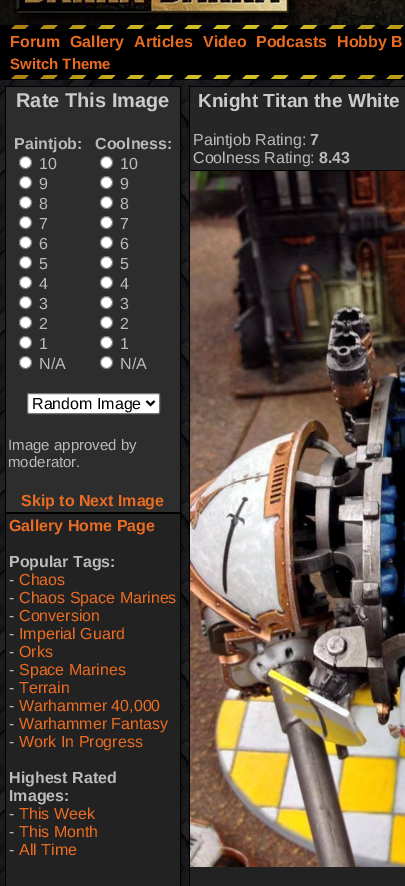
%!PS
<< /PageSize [405 886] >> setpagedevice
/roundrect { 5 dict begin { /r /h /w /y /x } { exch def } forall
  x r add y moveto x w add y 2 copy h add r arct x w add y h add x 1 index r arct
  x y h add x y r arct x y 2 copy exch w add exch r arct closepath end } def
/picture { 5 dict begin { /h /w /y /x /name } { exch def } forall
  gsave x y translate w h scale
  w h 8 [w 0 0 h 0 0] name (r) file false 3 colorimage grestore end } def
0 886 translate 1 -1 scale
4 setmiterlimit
1 setgray
0 0 405 886 rectfill
(img1.rgb) 0 80 405 806 picture
(img2.rgb) 312 0 93 25 picture
(img3.rgb) 0 0 312 25 picture
0 setgray
0 29 405 46 rectfill
(img4.rgb) 0 25 405 4 picture
/LiberationSans-Bold [16 0 0 -16 0 0] selectfont
0.918 0.424 0.133 setrgbcolor
10 47 moveto (Forum) show
70 47 moveto (Gallery) show
134 47 moveto (Articles) show
203 47 moveto (Video) show
256 47 moveto (Podcasts) show
337 47 moveto (Hobby B) show
/LiberationSans-Bold [15 0 0 -15 0 0] selectfont
10 69 moveto (Switch Theme) show
0 setgray
0 79 405 1 rectfill
(img4.rgb) 0 75 405 4 picture
5.5 86.5 175 426 rectstroke
0.176 setgray
6 87 174 425 rectfill
/LiberationSans-Bold [20 0 0 -20 0 0] selectfont
0.796 setgray
16 107 moveto (Rate This Image) show
/LiberationSans-Bold [16 0 0 -16 0 0] selectfont
0.729 setgray
14 149 moveto (Paintjob:) show
1 setgray
newpath 25.5 162.5 6 0 360 arc closepath gsave fill grestore
0.463 setgray
stroke
/LiberationSans-Regular [16 0 0 -16 0 0] selectfont
0.729 setgray
39 169 moveto (10) show
1 setgray
newpath 25.5 182.5 6 0 360 arc closepath gsave fill grestore
0.463 setgray
stroke
0.729 setgray
39 189 moveto (9) show
1 setgray
newpath 25.5 202.5 6 0 360 arc closepath gsave fill grestore
0.463 setgray
stroke
0.729 setgray
39 209 moveto (8) show
1 setgray
newpath 25.5 222.5 6 0 360 arc closepath gsave fill grestore
0.463 setgray
stroke
0.729 setgray
39 229 moveto (7) show
1 setgray
newpath 25.5 242.5 6 0 360 arc closepath gsave fill grestore
0.463 setgray
stroke
0.729 setgray
39 249 moveto (6) show
1 setgray
newpath 25.5 262.5 6 0 360 arc closepath gsave fill grestore
0.463 setgray
stroke
0.729 setgray
39 269 moveto (5) show
1 setgray
newpath 25.5 282.5 6 0 360 arc closepath gsave fill grestore
0.463 setgray
stroke
0.729 setgray
39 289 moveto (4) show
1 setgray
newpath 25.5 302.5 6 0 360 arc closepath gsave fill grestore
0.463 setgray
stroke
0.729 setgray
39 309 moveto (3) show
1 setgray
newpath 25.5 322.5 6 0 360 arc closepath gsave fill grestore
0.463 setgray
stroke
0.729 setgray
39 329 moveto (2) show
1 setgray
newpath 25.5 342.5 6 0 360 arc closepath gsave fill grestore
0.463 setgray
stroke
0.729 setgray
39 349 moveto (1) show
1 setgray
newpath 25.5 362.5 6 0 360 arc closepath gsave fill grestore
0.463 setgray
stroke
0.729 setgray
39 369 moveto (N/A) show
/LiberationSans-Bold [16 0 0 -16 0 0] selectfont
95 149 moveto (Coolness:) show
1 setgray
newpath 106.5 162.5 6 0 360 arc closepath gsave fill grestore
0.463 setgray
stroke
/LiberationSans-Regular [16 0 0 -16 0 0] selectfont
0.729 setgray
120 169 moveto (10) show
1 setgray
newpath 106.5 182.5 6 0 360 arc closepath gsave fill grestore
0.463 setgray
stroke
0.729 setgray
120 189 moveto (9) show
1 setgray
newpath 106.5 202.5 6 0 360 arc closepath gsave fill grestore
0.463 setgray
stroke
0.729 setgray
120 209 moveto (8) show
1 setgray
newpath 106.5 222.5 6 0 360 arc closepath gsave fill grestore
0.463 setgray
stroke
0.729 setgray
120 229 moveto (7) show
1 setgray
newpath 106.5 242.5 6 0 360 arc closepath gsave fill grestore
0.463 setgray
stroke
0.729 setgray
120 249 moveto (6) show
1 setgray
newpath 106.5 262.5 6 0 360 arc closepath gsave fill grestore
0.463 setgray
stroke
0.729 setgray
120 269 moveto (5) show
1 setgray
newpath 106.5 282.5 6 0 360 arc closepath gsave fill grestore
0.463 setgray
stroke
0.729 setgray
120 289 moveto (4) show
1 setgray
newpath 106.5 302.5 6 0 360 arc closepath gsave fill grestore
0.463 setgray
stroke
0.729 setgray
120 309 moveto (3) show
1 setgray
newpath 106.5 322.5 6 0 360 arc closepath gsave fill grestore
0.463 setgray
stroke
0.729 setgray
120 329 moveto (2) show
1 setgray
newpath 106.5 342.5 6 0 360 arc closepath gsave fill grestore
0.463 setgray
stroke
0.729 setgray
120 349 moveto (1) show
1 setgray
newpath 106.5 362.5 6 0 360 arc closepath gsave fill grestore
0.463 setgray
stroke
0.729 setgray
120 369 moveto (N/A) show
1 setgray
27.5 393.5 132 20 1.5 roundrect gsave fill grestore
0.463 setgray
stroke
0 setgray
2 setlinewidth
newpath 146.5 401 moveto 150.5 405 lineto 154.5 401 lineto stroke
32 409 moveto (Random Image) show
/LiberationSans-Regular [15 0 0 -15 0 0] selectfont
0.729 setgray
8 450 moveto (Image approved by) show
8 467 moveto (moderator.) show
/LiberationSans-Bold [16 0 0 -16 0 0] selectfont
0.918 0.424 0.133 setrgbcolor
21 506 moveto (Skip to Next Image) show
0 setgray
1 setlinewidth
5.5 513.5 175 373 rectstroke
0.133 setgray
6 514 174 372 rectfill
0.918 0.424 0.133 setrgbcolor
9 531 moveto (Gallery Home Page) show
0.729 setgray
9 567 moveto (Popular Tags:) show
/LiberationSans-Regular [16 0 0 -16 0 0] selectfont
9 585 moveto (-) show
0.918 0.424 0.133 setrgbcolor
19 585 moveto (Chaos) show
0.729 setgray
9 603 moveto (-) show
0.918 0.424 0.133 setrgbcolor
19 603 moveto (Chaos Space Marines) show
0.729 setgray
9 621 moveto (-) show
0.918 0.424 0.133 setrgbcolor
19 621 moveto (Conversion) show
0.729 setgray
9 639 moveto (-) show
0.918 0.424 0.133 setrgbcolor
19 639 moveto (Imperial Guard) show
0.729 setgray
9 657 moveto (-) show
0.918 0.424 0.133 setrgbcolor
19 657 moveto (Orks) show
0.729 setgray
9 675 moveto (-) show
0.918 0.424 0.133 setrgbcolor
19 675 moveto (Space Marines) show
0.729 setgray
9 693 moveto (-) show
0.918 0.424 0.133 setrgbcolor
19 693 moveto (Terrain) show
0.729 setgray
9 711 moveto (-) show
0.918 0.424 0.133 setrgbcolor
19 711 moveto (Warhammer 40,000) show
0.729 setgray
9 729 moveto (-) show
0.918 0.424 0.133 setrgbcolor
19 729 moveto (Warhammer Fantasy) show
0.729 setgray
9 747 moveto (-) show
0.918 0.424 0.133 setrgbcolor
19 747 moveto (Work In Progress) show
/LiberationSans-Bold [16 0 0 -16 0 0] selectfont
0.729 setgray
9 783 moveto (Highest Rated) show
9 801 moveto (Images:) show
/LiberationSans-Regular [16 0 0 -16 0 0] selectfont
9 819 moveto (-) show
0.918 0.424 0.133 setrgbcolor
19 819 moveto (This Week) show
0.729 setgray
9 837 moveto (-) show
0.918 0.424 0.133 setrgbcolor
19 837 moveto (This Month) show
0.729 setgray
9 855 moveto (-) show
0.918 0.424 0.133 setrgbcolor
19 855 moveto (All Time) show
0 setgray
189.5 86.5 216 84 rectstroke
0.149 setgray
190 87 215 83 rectfill
/LiberationSans-Bold [19 0 0 -19 0 0] selectfont
0.796 setgray
198 107 moveto (Knight Titan the White) show
/LiberationSans-Regular [16 0 0 -16 0 0] selectfont
0.729 setgray
193 145 moveto (Paintjob Rating:) show
/LiberationSans-Bold [16 0 0 -16 0 0] selectfont
310 145 moveto (7) show
/LiberationSans-Regular [16 0 0 -16 0 0] selectfont
193 163 moveto (Coolness Rating:) show
/LiberationSans-Bold [16 0 0 -16 0 0] selectfont
319 163 moveto (8.43) show
0 setgray
189 171 1 715 rectfill
0.133 setgray
190 867 215 19 rectfill
(img5.rgb) 190 171 215 696 picture
showpage
